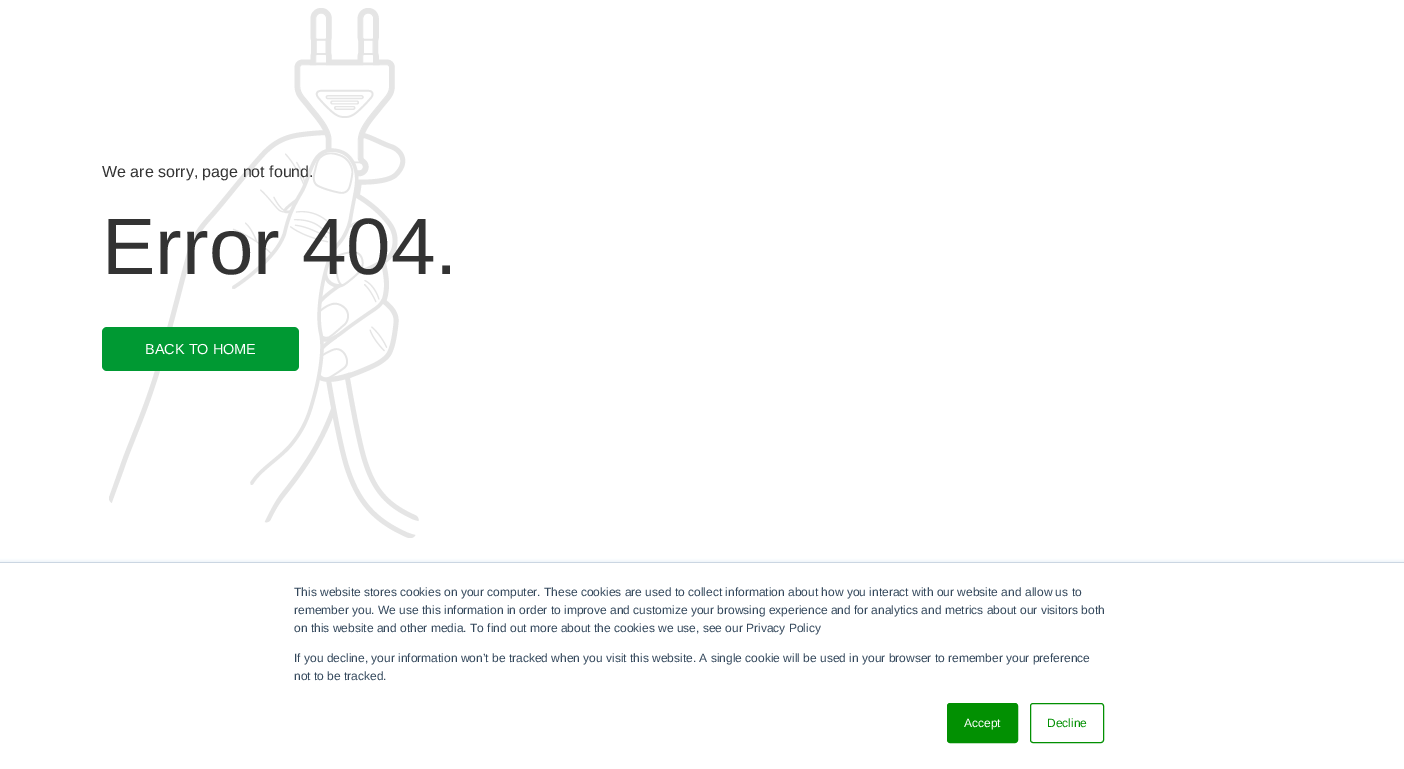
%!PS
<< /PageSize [1404 769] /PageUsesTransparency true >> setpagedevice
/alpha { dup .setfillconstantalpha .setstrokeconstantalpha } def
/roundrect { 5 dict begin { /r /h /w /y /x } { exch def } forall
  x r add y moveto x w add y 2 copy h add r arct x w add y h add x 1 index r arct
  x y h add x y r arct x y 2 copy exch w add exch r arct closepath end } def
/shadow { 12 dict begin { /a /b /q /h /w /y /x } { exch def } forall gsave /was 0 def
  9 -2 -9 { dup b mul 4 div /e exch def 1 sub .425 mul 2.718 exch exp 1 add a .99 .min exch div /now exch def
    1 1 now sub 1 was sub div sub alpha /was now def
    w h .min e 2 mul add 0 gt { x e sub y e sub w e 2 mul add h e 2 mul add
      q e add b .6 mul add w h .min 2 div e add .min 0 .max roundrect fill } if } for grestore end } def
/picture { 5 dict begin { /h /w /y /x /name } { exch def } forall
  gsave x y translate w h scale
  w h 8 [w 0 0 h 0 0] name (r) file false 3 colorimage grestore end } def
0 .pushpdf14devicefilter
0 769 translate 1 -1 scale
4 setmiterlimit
1 setgray
0 0 1404 769 rectfill
(img1.rgb) 109 8 310 530 picture
/LiberationSans-Regular [16 0 0 -16 0 0] selectfont
0.2 setgray
102 177 moveto (We are sorry, page not found.) show
/LiberationSans-Regular [80 0 0 -80 0 0] selectfont
102 274 moveto (Error 404.) show
0 0.6 0.2 setrgbcolor
102 327 197 44 5 roundrect fill
/LiberationSans-Regular [14.5 0 0 -14.5 0 0] selectfont
1 setgray
145 354 moveto (BACK TO HOME) show
gsave
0 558 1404 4 rectclip
0.918 0.941 0.965 setrgbcolor
0 561 1404 207 0 1.5 1 shadow
grestore
0.796 0.839 0.886 setrgbcolor
0 562 1404 1 rectfill
/LiberationSans-Regular [12 0 0 -12 0 0] selectfont
0.2 0.278 0.357 setrgbcolor
294 596 moveto (This website stores cookies on your computer. These cookies are used to collect information about how you interact with our website and allow us to) show
294 614 moveto (remember you. We use this information in order to improve and customize your browsing experience and for analytics and metrics about our visitors both) show
294 632 moveto (on this website and other media. To find out more about the cookies we use, see our Privacy Policy) show
294 662 moveto (If you decline, your information won’t be tracked when you visit this website. A single cookie will be used in your browser to remember your preference) show
294 680 moveto (not to be tracked.) show
0.008 0.565 0.008 setrgbcolor
947.5 703.5 70 39 2.5 roundrect gsave fill grestore
stroke
1 setgray
964 727 moveto (Accept) show
0.008 0.565 0.008 setrgbcolor
1030.5 703.5 73 39 2.5 roundrect stroke
1047 727 moveto (Decline) show
.poppdf14devicefilter showpage
